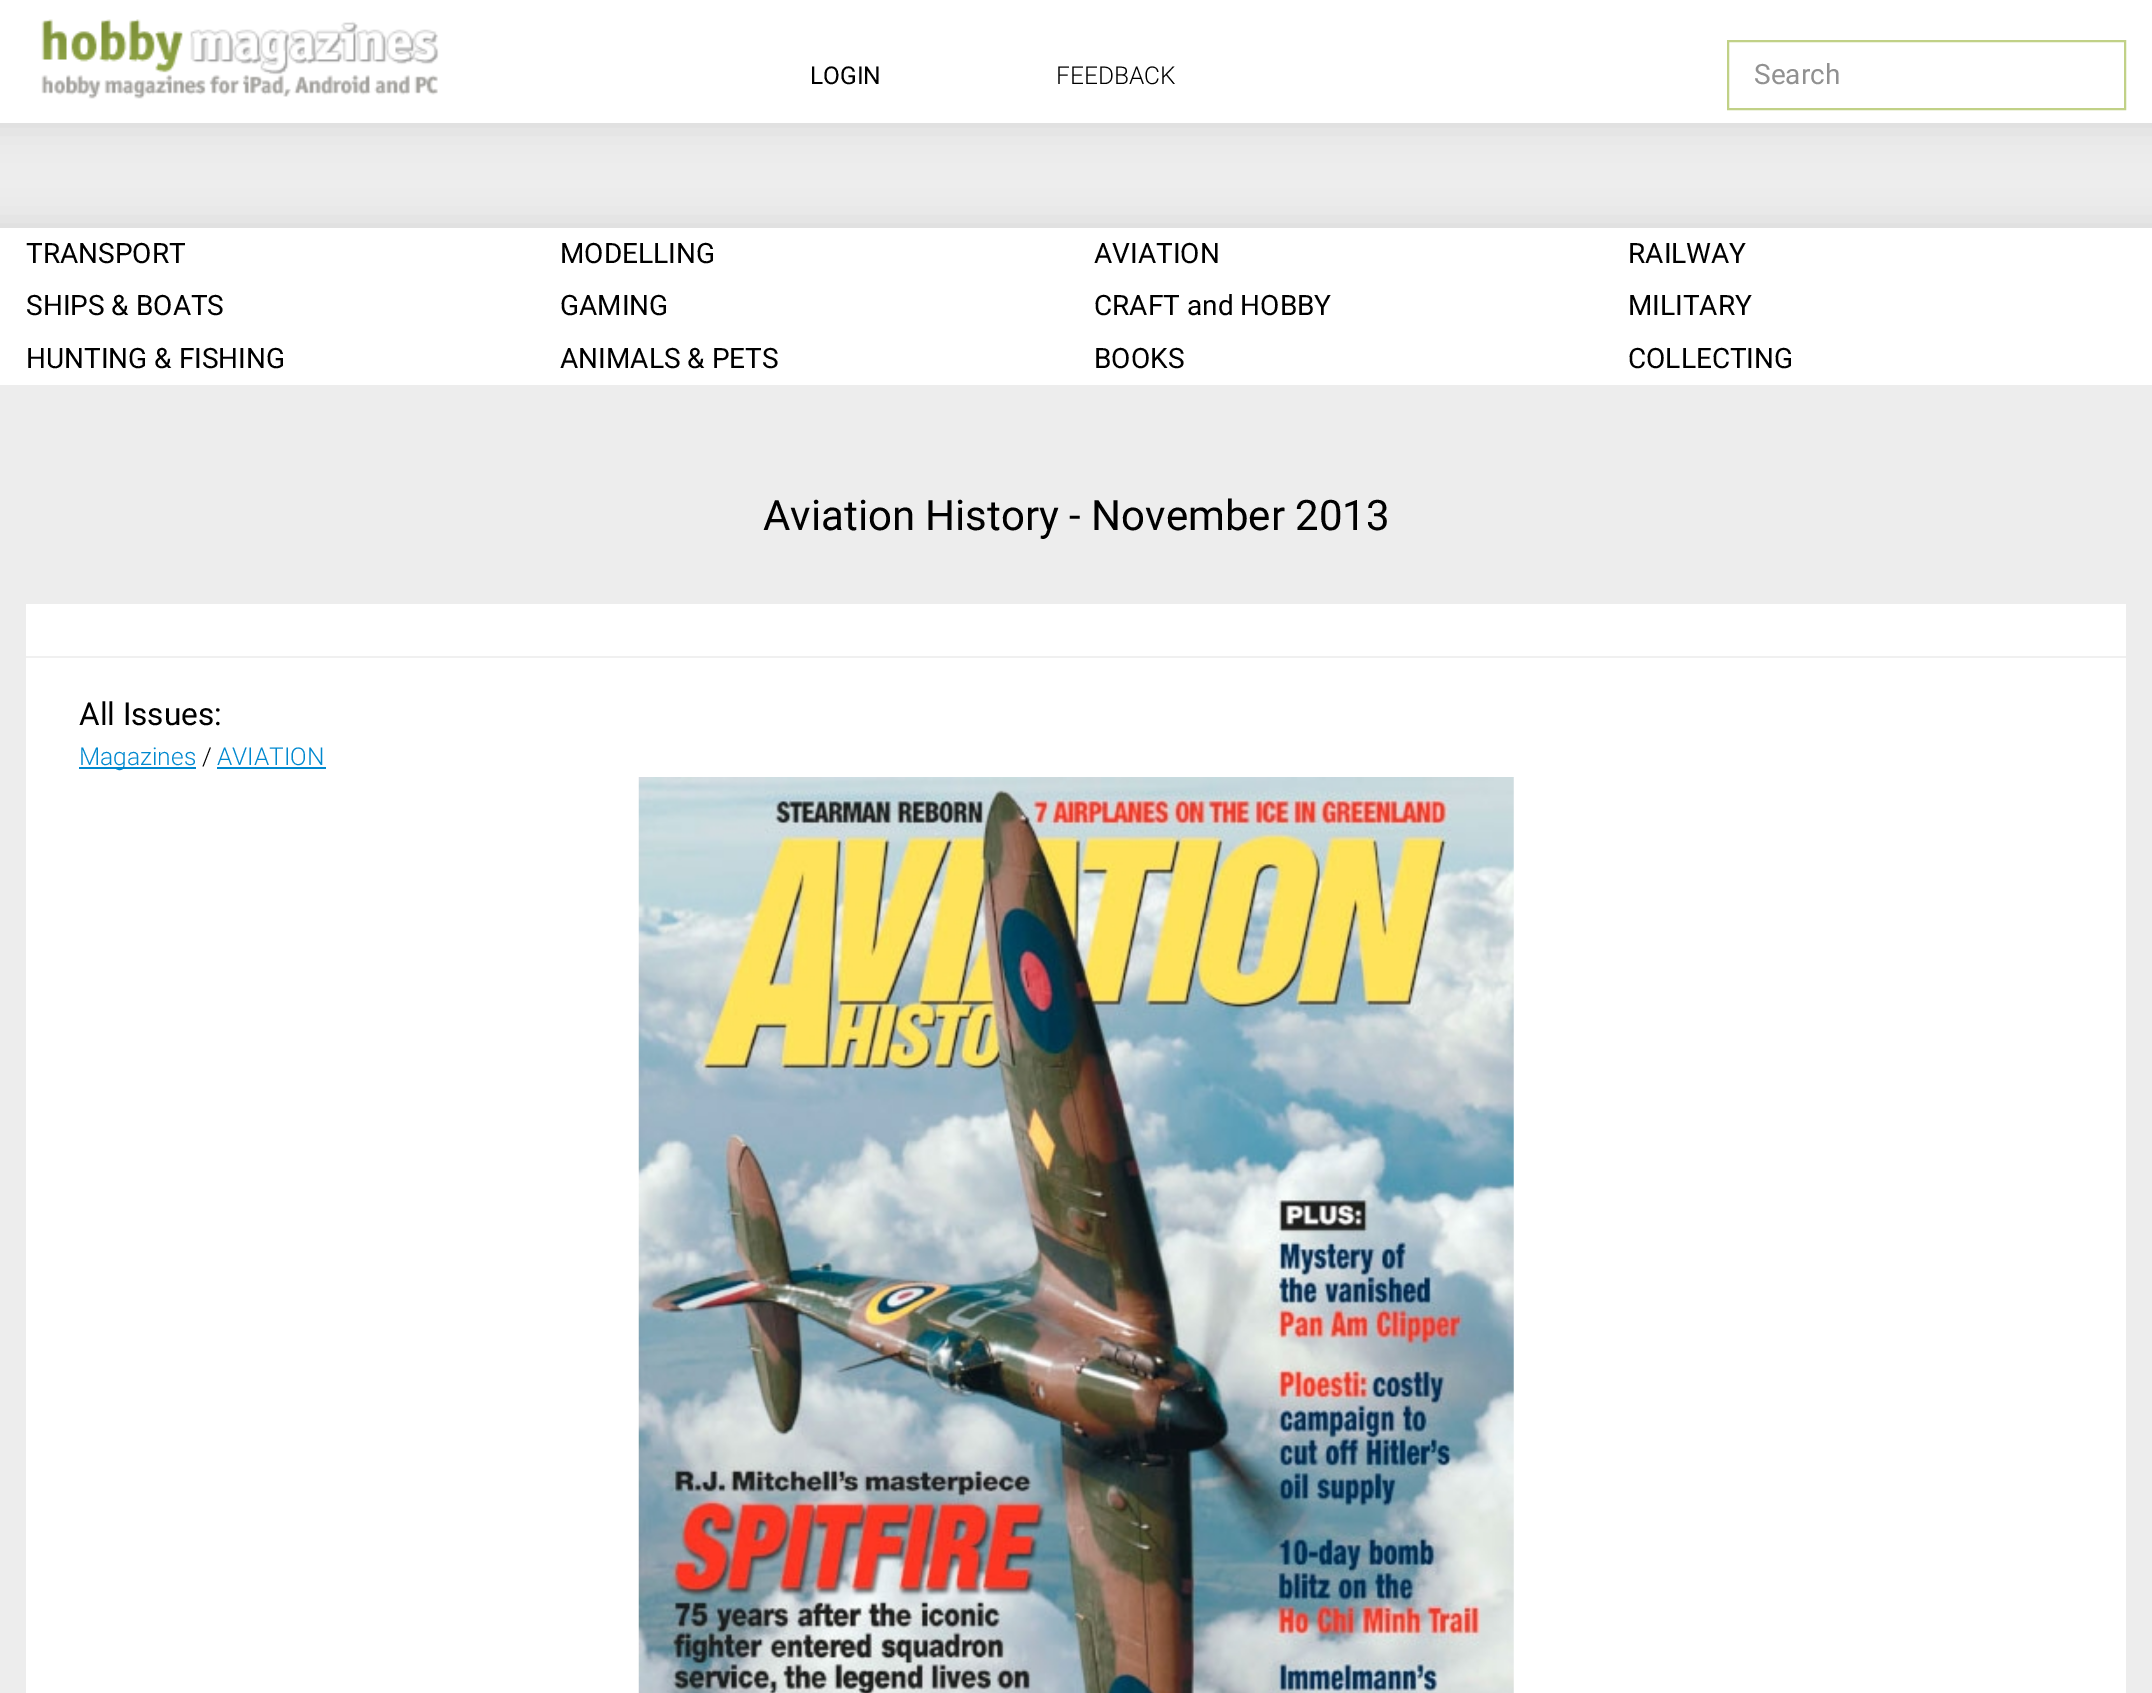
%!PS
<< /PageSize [2152 1693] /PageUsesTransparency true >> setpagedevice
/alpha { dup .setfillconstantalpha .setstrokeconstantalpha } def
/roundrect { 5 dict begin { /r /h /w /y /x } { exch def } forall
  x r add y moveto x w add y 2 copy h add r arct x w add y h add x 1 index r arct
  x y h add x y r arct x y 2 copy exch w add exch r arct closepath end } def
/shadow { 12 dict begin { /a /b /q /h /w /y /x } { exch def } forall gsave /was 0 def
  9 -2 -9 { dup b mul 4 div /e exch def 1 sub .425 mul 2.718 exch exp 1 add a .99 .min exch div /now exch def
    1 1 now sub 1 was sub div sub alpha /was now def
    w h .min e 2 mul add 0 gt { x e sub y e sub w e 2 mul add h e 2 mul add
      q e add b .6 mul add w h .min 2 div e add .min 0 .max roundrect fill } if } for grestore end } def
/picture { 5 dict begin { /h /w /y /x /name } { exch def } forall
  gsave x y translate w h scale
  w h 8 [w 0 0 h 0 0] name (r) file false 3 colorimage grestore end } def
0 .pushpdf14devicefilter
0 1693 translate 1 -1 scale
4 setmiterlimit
0.929 setgray
0 0 2152 1693 rectfill
0 setgray
-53 70 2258 53 0 17.5 0.1 shadow
1 setgray
0 0 2152 123 rectfill
(img1.rgb) 41 19 398 80 picture
/Roboto-Regular [24.5 0 0 -24.5 0 0] selectfont
0 setgray
810 84 moveto (LOGIN) show
/Roboto-Light [24.5 0 0 -24.5 0 0] selectfont
1056 84 moveto (FEEDBACK) show
0.757 0.82 0.529 setrgbcolor
2 setlinewidth
1728 41 397 68 rectstroke
/Roboto-Regular [28 0 0 -28 0 0] selectfont
0.569 setgray
1754 84 moveto (Search) show
0 setgray
-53 228 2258 87 0 17.5 0.1 shadow
1 setgray
0 228 2152 157 rectfill
0 setgray
26 263 moveto (TRANSPORT) show
560 263 moveto (MODELLING) show
1094 263 moveto (AVIATION) show
1628 263 moveto (RAILWAY) show
26 315 moveto (SHIPS & BOATS) show
560 315 moveto (GAMING) show
1094 315 moveto (CRAFT and HOBBY) show
1628 315 moveto (MILITARY) show
26 368 moveto (HUNTING & FISHING) show
560 368 moveto (ANIMALS & PETS) show
1094 368 moveto (BOOKS) show
1628 368 moveto (COLLECTING) show
/Roboto-Regular [42 0 0 -42 0 0] selectfont
763 530 moveto (Aviation History - November 2013) show
1 setgray
26 604 2100 1089 rectfill
0.941 setgray
26 656 2100 2 rectfill
/Roboto-Regular [31.5 0 0 -31.5 0 0] selectfont
0 setgray
79 725 moveto (All Issues:) show
0 0.533 0.812 setrgbcolor
79 767 117 2 rectfill
/Roboto-Light [24.5 0 0 -24.5 0 0] selectfont
79 765 moveto (Magazines) show
0 setgray
202 765 moveto (/) show
0 0.533 0.812 setrgbcolor
217 765 moveto (AVIATION) show
217 767 109 2 rectfill
(img2.rgb) 638 777 876 916 picture
.poppdf14devicefilter showpage
